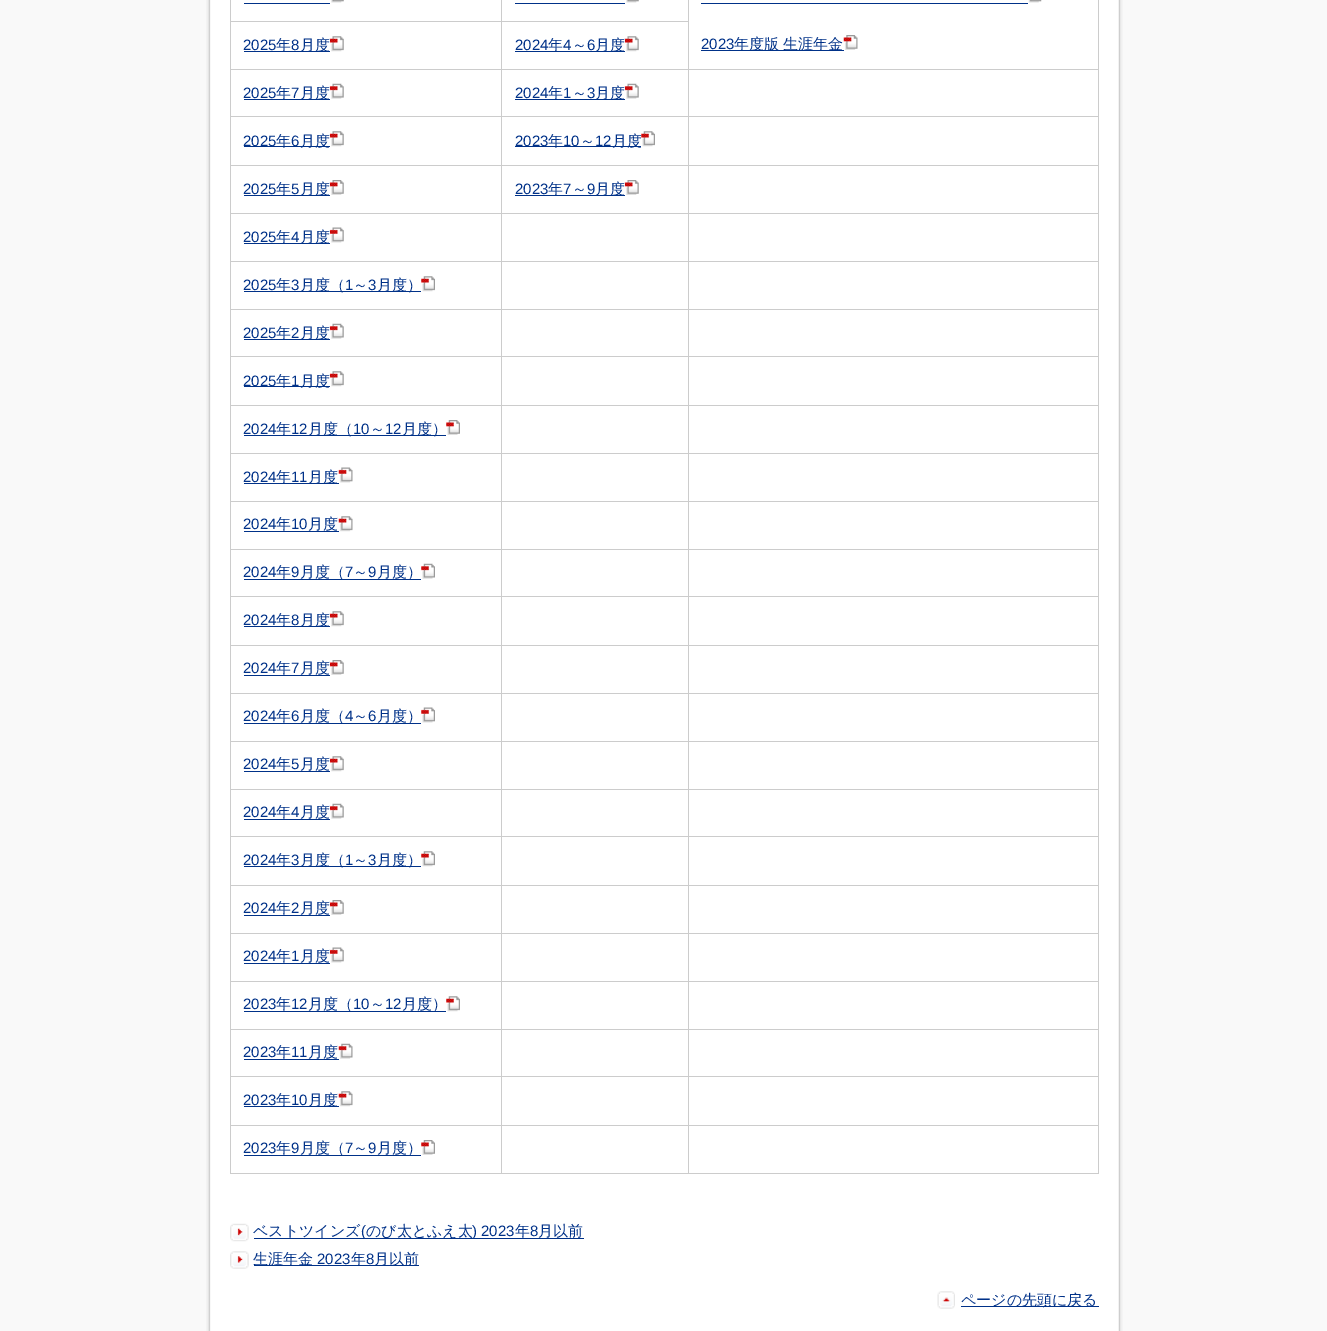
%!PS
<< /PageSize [1327 1331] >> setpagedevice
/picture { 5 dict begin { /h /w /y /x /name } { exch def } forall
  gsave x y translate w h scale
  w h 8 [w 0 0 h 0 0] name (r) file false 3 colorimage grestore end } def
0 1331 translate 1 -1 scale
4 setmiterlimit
0.976 setgray
0 0 1327 1331 rectfill
(img1.rgb) 206 0 917 1331 picture
0.8 setgray
1098 0 1 1174 rectfill
230 1173 869 1 rectfill
230 0 1 1174 rectfill
(img2.rgb) 331 0 13 3 picture
0 0.192 0.533 setrgbcolor
244 3 86 1 rectfill
0.8 setgray
501 21 188 1 rectfill
688 69 411 1 rectfill
688 116 411 1 rectfill
688 165 411 1 rectfill
688 213 411 1 rectfill
688 261 411 1 rectfill
688 309 411 1 rectfill
688 356 411 1 rectfill
688 405 411 1 rectfill
688 453 411 1 rectfill
688 501 411 1 rectfill
688 549 411 1 rectfill
688 596 411 1 rectfill
688 645 411 1 rectfill
688 693 411 1 rectfill
688 741 411 1 rectfill
688 789 411 1 rectfill
688 836 411 1 rectfill
688 885 411 1 rectfill
688 933 411 1 rectfill
688 981 411 1 rectfill
688 1029 411 1 rectfill
688 1076 411 1 rectfill
688 1125 411 1 rectfill
688 1125 1 49 rectfill
501 1125 188 1 rectfill
688 1076 1 50 rectfill
501 1076 188 1 rectfill
688 1029 1 49 rectfill
501 1029 188 1 rectfill
688 981 1 49 rectfill
501 981 188 1 rectfill
688 933 1 50 rectfill
501 933 188 1 rectfill
688 885 1 49 rectfill
501 885 188 1 rectfill
688 836 1 50 rectfill
501 836 188 1 rectfill
688 789 1 49 rectfill
501 789 188 1 rectfill
688 741 1 49 rectfill
501 741 188 1 rectfill
688 693 1 50 rectfill
501 693 188 1 rectfill
688 645 1 49 rectfill
501 645 188 1 rectfill
688 596 1 50 rectfill
501 596 188 1 rectfill
688 549 1 49 rectfill
501 549 188 1 rectfill
688 501 1 49 rectfill
501 501 188 1 rectfill
688 453 1 50 rectfill
501 453 188 1 rectfill
688 405 1 49 rectfill
501 405 188 1 rectfill
688 356 1 50 rectfill
501 356 188 1 rectfill
688 309 1 49 rectfill
501 309 188 1 rectfill
688 261 1 49 rectfill
501 261 188 1 rectfill
688 213 1 50 rectfill
501 213 188 1 rectfill
688 165 1 49 rectfill
501 165 188 1 rectfill
688 116 1 50 rectfill
501 116 188 1 rectfill
688 69 1 49 rectfill
501 69 188 1 rectfill
501 1125 1 49 rectfill
230 1125 273 1 rectfill
501 1076 1 50 rectfill
230 1076 273 1 rectfill
501 1029 1 49 rectfill
230 1029 273 1 rectfill
501 981 1 49 rectfill
230 981 273 1 rectfill
501 933 1 50 rectfill
230 933 273 1 rectfill
501 885 1 49 rectfill
230 885 273 1 rectfill
501 836 1 50 rectfill
230 836 273 1 rectfill
501 789 1 49 rectfill
230 789 273 1 rectfill
501 741 1 49 rectfill
230 741 273 1 rectfill
501 693 1 50 rectfill
230 693 273 1 rectfill
501 645 1 49 rectfill
230 645 273 1 rectfill
501 596 1 50 rectfill
230 596 273 1 rectfill
501 549 1 49 rectfill
230 549 273 1 rectfill
501 501 1 49 rectfill
230 501 273 1 rectfill
501 453 1 50 rectfill
230 453 273 1 rectfill
501 405 1 49 rectfill
230 405 273 1 rectfill
501 356 1 50 rectfill
230 356 273 1 rectfill
501 309 1 49 rectfill
230 309 273 1 rectfill
501 261 1 49 rectfill
230 261 273 1 rectfill
501 213 1 50 rectfill
230 213 273 1 rectfill
501 165 1 49 rectfill
230 165 273 1 rectfill
501 116 1 50 rectfill
230 116 273 1 rectfill
501 69 1 49 rectfill
230 69 273 1 rectfill
501 21 1 49 rectfill
230 21 273 1 rectfill
501 0 1 23 rectfill
(img2.rgb) 626 0 13 3 picture
0 0.192 0.533 setrgbcolor
515 3 110 1 rectfill
(img3.rgb) 1028 0 14 3 picture
701 3 327 1 rectfill
/LiberationSans-Regular [15 0 0 -15 0 0] selectfont
243 50 moveto (2025) show
244 51 86 1 rectfill
/WenQuanYiZenHei-Medium [15 0 0 -15 0 0] selectfont
276 50 moveto (年) show
/LiberationSans-Regular [15 0 0 -15 0 0] selectfont
291 50 moveto (8) show
/WenQuanYiZenHei-Medium [15 0 0 -15 0 0] selectfont
300 50 moveto (月度) show
(img4.rgb) 330 36 14 16 picture
0.8 setgray
688 0 1 70 rectfill
/LiberationSans-Regular [15 0 0 -15 0 0] selectfont
0 0.192 0.533 setrgbcolor
515 50 moveto (2024) show
515 51 110 1 rectfill
/WenQuanYiZenHei-Medium [15 0 0 -15 0 0] selectfont
548 50 moveto (年) show
/LiberationSans-Regular [15 0 0 -15 0 0] selectfont
563 50 moveto (4) show
/WenQuanYiZenHei-Medium [15 0 0 -15 0 0] selectfont
572 50 moveto (～) show
/LiberationSans-Regular [15 0 0 -15 0 0] selectfont
587 50 moveto (6) show
/WenQuanYiZenHei-Medium [15 0 0 -15 0 0] selectfont
595 50 moveto (月度) show
(img4.rgb) 625 36 14 16 picture
/LiberationSans-Regular [15 0 0 -15 0 0] selectfont
701 49 moveto (2023) show
701 50 143 1 rectfill
/WenQuanYiZenHei-Medium [15 0 0 -15 0 0] selectfont
734 49 moveto (年度版 生涯年金) show
(img5.rgb) 843 35 15 15 picture
/LiberationSans-Regular [15 0 0 -15 0 0] selectfont
243 98 moveto (2025) show
244 99 86 1 rectfill
/WenQuanYiZenHei-Medium [15 0 0 -15 0 0] selectfont
276 98 moveto (年) show
/LiberationSans-Regular [15 0 0 -15 0 0] selectfont
291 98 moveto (7) show
/WenQuanYiZenHei-Medium [15 0 0 -15 0 0] selectfont
300 98 moveto (月度) show
(img6.rgb) 330 83 14 16 picture
/LiberationSans-Regular [15 0 0 -15 0 0] selectfont
515 98 moveto (2024) show
515 99 110 1 rectfill
/WenQuanYiZenHei-Medium [15 0 0 -15 0 0] selectfont
548 98 moveto (年) show
/LiberationSans-Regular [15 0 0 -15 0 0] selectfont
563 98 moveto (1) show
/WenQuanYiZenHei-Medium [15 0 0 -15 0 0] selectfont
572 98 moveto (～) show
/LiberationSans-Regular [15 0 0 -15 0 0] selectfont
587 98 moveto (3) show
/WenQuanYiZenHei-Medium [15 0 0 -15 0 0] selectfont
595 98 moveto (月度) show
(img6.rgb) 625 83 14 16 picture
244 146 86 1 rectfill
/LiberationSans-Regular [15 0 0 -15 0 0] selectfont
243 146 moveto (2025) show
/WenQuanYiZenHei-Medium [15 0 0 -15 0 0] selectfont
276 146 moveto (年) show
/LiberationSans-Regular [15 0 0 -15 0 0] selectfont
291 146 moveto (6) show
/WenQuanYiZenHei-Medium [15 0 0 -15 0 0] selectfont
300 146 moveto (月度) show
(img4.rgb) 330 131 14 16 picture
515 146 126 1 rectfill
/LiberationSans-Regular [15 0 0 -15 0 0] selectfont
515 146 moveto (2023) show
/WenQuanYiZenHei-Medium [15 0 0 -15 0 0] selectfont
548 146 moveto (年) show
/LiberationSans-Regular [15 0 0 -15 0 0] selectfont
563 146 moveto (10) show
/WenQuanYiZenHei-Medium [15 0 0 -15 0 0] selectfont
580 146 moveto (～) show
/LiberationSans-Regular [15 0 0 -15 0 0] selectfont
595 146 moveto (12) show
/WenQuanYiZenHei-Medium [15 0 0 -15 0 0] selectfont
612 146 moveto (月度) show
(img7.rgb) 641 131 14 16 picture
/LiberationSans-Regular [15 0 0 -15 0 0] selectfont
243 194 moveto (2025) show
244 195 86 1 rectfill
/WenQuanYiZenHei-Medium [15 0 0 -15 0 0] selectfont
276 194 moveto (年) show
/LiberationSans-Regular [15 0 0 -15 0 0] selectfont
291 194 moveto (5) show
/WenQuanYiZenHei-Medium [15 0 0 -15 0 0] selectfont
300 194 moveto (月度) show
(img8.rgb) 330 180 14 15 picture
/LiberationSans-Regular [15 0 0 -15 0 0] selectfont
515 194 moveto (2023) show
515 195 110 1 rectfill
/WenQuanYiZenHei-Medium [15 0 0 -15 0 0] selectfont
548 194 moveto (年) show
/LiberationSans-Regular [15 0 0 -15 0 0] selectfont
563 194 moveto (7) show
/WenQuanYiZenHei-Medium [15 0 0 -15 0 0] selectfont
572 194 moveto (～) show
/LiberationSans-Regular [15 0 0 -15 0 0] selectfont
587 194 moveto (9) show
/WenQuanYiZenHei-Medium [15 0 0 -15 0 0] selectfont
595 194 moveto (月度) show
(img8.rgb) 625 180 14 15 picture
/LiberationSans-Regular [15 0 0 -15 0 0] selectfont
243 242 moveto (2025) show
244 243 86 1 rectfill
/WenQuanYiZenHei-Medium [15 0 0 -15 0 0] selectfont
276 242 moveto (年) show
/LiberationSans-Regular [15 0 0 -15 0 0] selectfont
291 242 moveto (4) show
/WenQuanYiZenHei-Medium [15 0 0 -15 0 0] selectfont
300 242 moveto (月度) show
(img9.rgb) 330 227 14 16 picture
/LiberationSans-Regular [15 0 0 -15 0 0] selectfont
243 290 moveto (2025) show
244 291 177 1 rectfill
/WenQuanYiZenHei-Medium [15 0 0 -15 0 0] selectfont
276 290 moveto (年) show
/LiberationSans-Regular [15 0 0 -15 0 0] selectfont
291 290 moveto (3) show
/WenQuanYiZenHei-Medium [15 0 0 -15 0 0] selectfont
300 290 moveto (月度（) show
/LiberationSans-Regular [15 0 0 -15 0 0] selectfont
345 290 moveto (1) show
/WenQuanYiZenHei-Medium [15 0 0 -15 0 0] selectfont
353 290 moveto (～) show
/LiberationSans-Regular [15 0 0 -15 0 0] selectfont
368 290 moveto (3) show
/WenQuanYiZenHei-Medium [15 0 0 -15 0 0] selectfont
377 290 moveto (月度）) show
(img7.rgb) 421 276 14 16 picture
/LiberationSans-Regular [15 0 0 -15 0 0] selectfont
243 338 moveto (2025) show
244 339 86 1 rectfill
/WenQuanYiZenHei-Medium [15 0 0 -15 0 0] selectfont
276 338 moveto (年) show
/LiberationSans-Regular [15 0 0 -15 0 0] selectfont
291 338 moveto (2) show
/WenQuanYiZenHei-Medium [15 0 0 -15 0 0] selectfont
300 338 moveto (月度) show
(img10.rgb) 330 323 14 16 picture
244 386 86 1 rectfill
/LiberationSans-Regular [15 0 0 -15 0 0] selectfont
243 386 moveto (2025) show
/WenQuanYiZenHei-Medium [15 0 0 -15 0 0] selectfont
276 386 moveto (年) show
/LiberationSans-Regular [15 0 0 -15 0 0] selectfont
291 386 moveto (1) show
/WenQuanYiZenHei-Medium [15 0 0 -15 0 0] selectfont
300 386 moveto (月度) show
(img4.rgb) 330 371 14 16 picture
/LiberationSans-Regular [15 0 0 -15 0 0] selectfont
243 434 moveto (2024) show
244 435 202 1 rectfill
/WenQuanYiZenHei-Medium [15 0 0 -15 0 0] selectfont
276 434 moveto (年) show
/LiberationSans-Regular [15 0 0 -15 0 0] selectfont
291 434 moveto (12) show
/WenQuanYiZenHei-Medium [15 0 0 -15 0 0] selectfont
308 434 moveto (月度（) show
/LiberationSans-Regular [15 0 0 -15 0 0] selectfont
353 434 moveto (10) show
/WenQuanYiZenHei-Medium [15 0 0 -15 0 0] selectfont
370 434 moveto (～) show
/LiberationSans-Regular [15 0 0 -15 0 0] selectfont
385 434 moveto (12) show
/WenQuanYiZenHei-Medium [15 0 0 -15 0 0] selectfont
402 434 moveto (月度）) show
(img11.rgb) 446 420 14 15 picture
/LiberationSans-Regular [15 0 0 -15 0 0] selectfont
243 482 moveto (2024) show
244 483 95 1 rectfill
/WenQuanYiZenHei-Medium [15 0 0 -15 0 0] selectfont
276 482 moveto (年) show
/LiberationSans-Regular [15 0 0 -15 0 0] selectfont
291 482 moveto (11) show
/WenQuanYiZenHei-Medium [15 0 0 -15 0 0] selectfont
308 482 moveto (月度) show
(img12.rgb) 338 467 15 16 picture
/LiberationSans-Regular [15 0 0 -15 0 0] selectfont
243 529 moveto (2024) show
244 531 95 1 rectfill
/WenQuanYiZenHei-Medium [15 0 0 -15 0 0] selectfont
276 529 moveto (年) show
/LiberationSans-Regular [15 0 0 -15 0 0] selectfont
291 529 moveto (10) show
/WenQuanYiZenHei-Medium [15 0 0 -15 0 0] selectfont
308 529 moveto (月度) show
(img13.rgb) 338 516 15 16 picture
/LiberationSans-Regular [15 0 0 -15 0 0] selectfont
243 577 moveto (2024) show
/WenQuanYiZenHei-Medium [15 0 0 -15 0 0] selectfont
276 577 moveto (年) show
/LiberationSans-Regular [15 0 0 -15 0 0] selectfont
291 577 moveto (9) show
244 579 177 1 rectfill
/WenQuanYiZenHei-Medium [15 0 0 -15 0 0] selectfont
300 577 moveto (月度（) show
/LiberationSans-Regular [15 0 0 -15 0 0] selectfont
345 577 moveto (7) show
/WenQuanYiZenHei-Medium [15 0 0 -15 0 0] selectfont
353 577 moveto (～) show
/LiberationSans-Regular [15 0 0 -15 0 0] selectfont
368 577 moveto (9) show
/WenQuanYiZenHei-Medium [15 0 0 -15 0 0] selectfont
377 577 moveto (月度）) show
(img14.rgb) 421 563 14 16 picture
/LiberationSans-Regular [15 0 0 -15 0 0] selectfont
243 625 moveto (2024) show
244 626 86 1 rectfill
/WenQuanYiZenHei-Medium [15 0 0 -15 0 0] selectfont
276 625 moveto (年) show
/LiberationSans-Regular [15 0 0 -15 0 0] selectfont
291 625 moveto (8) show
/WenQuanYiZenHei-Medium [15 0 0 -15 0 0] selectfont
300 625 moveto (月度) show
(img4.rgb) 330 611 14 16 picture
/LiberationSans-Regular [15 0 0 -15 0 0] selectfont
243 673 moveto (2024) show
244 675 86 1 rectfill
/WenQuanYiZenHei-Medium [15 0 0 -15 0 0] selectfont
276 673 moveto (年) show
/LiberationSans-Regular [15 0 0 -15 0 0] selectfont
291 673 moveto (7) show
/WenQuanYiZenHei-Medium [15 0 0 -15 0 0] selectfont
300 673 moveto (月度) show
(img8.rgb) 330 660 14 15 picture
/LiberationSans-Regular [15 0 0 -15 0 0] selectfont
243 721 moveto (2024) show
/WenQuanYiZenHei-Medium [15 0 0 -15 0 0] selectfont
276 721 moveto (年) show
/LiberationSans-Regular [15 0 0 -15 0 0] selectfont
291 721 moveto (6) show
244 723 177 1 rectfill
/WenQuanYiZenHei-Medium [15 0 0 -15 0 0] selectfont
300 721 moveto (月度（) show
/LiberationSans-Regular [15 0 0 -15 0 0] selectfont
345 721 moveto (4) show
/WenQuanYiZenHei-Medium [15 0 0 -15 0 0] selectfont
353 721 moveto (～) show
/LiberationSans-Regular [15 0 0 -15 0 0] selectfont
368 721 moveto (6) show
/WenQuanYiZenHei-Medium [15 0 0 -15 0 0] selectfont
377 721 moveto (月度）) show
(img15.rgb) 421 707 14 16 picture
/LiberationSans-Regular [15 0 0 -15 0 0] selectfont
243 769 moveto (2024) show
244 771 86 1 rectfill
/WenQuanYiZenHei-Medium [15 0 0 -15 0 0] selectfont
276 769 moveto (年) show
/LiberationSans-Regular [15 0 0 -15 0 0] selectfont
291 769 moveto (5) show
/WenQuanYiZenHei-Medium [15 0 0 -15 0 0] selectfont
300 769 moveto (月度) show
(img4.rgb) 330 756 14 16 picture
/LiberationSans-Regular [15 0 0 -15 0 0] selectfont
243 817 moveto (2024) show
244 819 86 1 rectfill
/WenQuanYiZenHei-Medium [15 0 0 -15 0 0] selectfont
276 817 moveto (年) show
/LiberationSans-Regular [15 0 0 -15 0 0] selectfont
291 817 moveto (4) show
/WenQuanYiZenHei-Medium [15 0 0 -15 0 0] selectfont
300 817 moveto (月度) show
(img10.rgb) 330 803 14 16 picture
/LiberationSans-Regular [15 0 0 -15 0 0] selectfont
243 865 moveto (2024) show
244 866 177 1 rectfill
/WenQuanYiZenHei-Medium [15 0 0 -15 0 0] selectfont
276 865 moveto (年) show
/LiberationSans-Regular [15 0 0 -15 0 0] selectfont
291 865 moveto (3) show
/WenQuanYiZenHei-Medium [15 0 0 -15 0 0] selectfont
300 865 moveto (月度（) show
/LiberationSans-Regular [15 0 0 -15 0 0] selectfont
345 865 moveto (1) show
/WenQuanYiZenHei-Medium [15 0 0 -15 0 0] selectfont
353 865 moveto (～) show
/LiberationSans-Regular [15 0 0 -15 0 0] selectfont
368 865 moveto (3) show
/WenQuanYiZenHei-Medium [15 0 0 -15 0 0] selectfont
377 865 moveto (月度）) show
(img7.rgb) 421 851 14 16 picture
/LiberationSans-Regular [15 0 0 -15 0 0] selectfont
243 913 moveto (2024) show
244 915 86 1 rectfill
/WenQuanYiZenHei-Medium [15 0 0 -15 0 0] selectfont
276 913 moveto (年) show
/LiberationSans-Regular [15 0 0 -15 0 0] selectfont
291 913 moveto (2) show
/WenQuanYiZenHei-Medium [15 0 0 -15 0 0] selectfont
300 913 moveto (月度) show
(img8.rgb) 330 900 14 15 picture
/LiberationSans-Regular [15 0 0 -15 0 0] selectfont
243 961 moveto (2024) show
244 963 86 1 rectfill
/WenQuanYiZenHei-Medium [15 0 0 -15 0 0] selectfont
276 961 moveto (年) show
/LiberationSans-Regular [15 0 0 -15 0 0] selectfont
291 961 moveto (1) show
/WenQuanYiZenHei-Medium [15 0 0 -15 0 0] selectfont
300 961 moveto (月度) show
(img9.rgb) 330 947 14 16 picture
/LiberationSans-Regular [15 0 0 -15 0 0] selectfont
243 1009 moveto (2023) show
/WenQuanYiZenHei-Medium [15 0 0 -15 0 0] selectfont
276 1009 moveto (年) show
/LiberationSans-Regular [15 0 0 -15 0 0] selectfont
291 1009 moveto (12) show
244 1011 202 1 rectfill
/WenQuanYiZenHei-Medium [15 0 0 -15 0 0] selectfont
308 1009 moveto (月度（) show
/LiberationSans-Regular [15 0 0 -15 0 0] selectfont
353 1009 moveto (10) show
/WenQuanYiZenHei-Medium [15 0 0 -15 0 0] selectfont
370 1009 moveto (～) show
/LiberationSans-Regular [15 0 0 -15 0 0] selectfont
385 1009 moveto (12) show
/WenQuanYiZenHei-Medium [15 0 0 -15 0 0] selectfont
402 1009 moveto (月度）) show
(img7.rgb) 446 996 14 16 picture
/LiberationSans-Regular [15 0 0 -15 0 0] selectfont
243 1057 moveto (2023) show
244 1059 95 1 rectfill
/WenQuanYiZenHei-Medium [15 0 0 -15 0 0] selectfont
276 1057 moveto (年) show
/LiberationSans-Regular [15 0 0 -15 0 0] selectfont
291 1057 moveto (11) show
/WenQuanYiZenHei-Medium [15 0 0 -15 0 0] selectfont
308 1057 moveto (月度) show
(img16.rgb) 338 1043 15 16 picture
/LiberationSans-Regular [15 0 0 -15 0 0] selectfont
243 1105 moveto (2023) show
244 1106 95 1 rectfill
/WenQuanYiZenHei-Medium [15 0 0 -15 0 0] selectfont
276 1105 moveto (年) show
/LiberationSans-Regular [15 0 0 -15 0 0] selectfont
291 1105 moveto (10) show
/WenQuanYiZenHei-Medium [15 0 0 -15 0 0] selectfont
308 1105 moveto (月度) show
(img13.rgb) 338 1091 15 16 picture
/LiberationSans-Regular [15 0 0 -15 0 0] selectfont
243 1153 moveto (2023) show
/WenQuanYiZenHei-Medium [15 0 0 -15 0 0] selectfont
276 1153 moveto (年) show
/LiberationSans-Regular [15 0 0 -15 0 0] selectfont
291 1153 moveto (9) show
244 1155 177 1 rectfill
/WenQuanYiZenHei-Medium [15 0 0 -15 0 0] selectfont
300 1153 moveto (月度（) show
/LiberationSans-Regular [15 0 0 -15 0 0] selectfont
345 1153 moveto (7) show
/WenQuanYiZenHei-Medium [15 0 0 -15 0 0] selectfont
353 1153 moveto (～) show
/LiberationSans-Regular [15 0 0 -15 0 0] selectfont
368 1153 moveto (9) show
/WenQuanYiZenHei-Medium [15 0 0 -15 0 0] selectfont
377 1153 moveto (月度）) show
(img11.rgb) 421 1140 14 15 picture
(img17.rgb) 230 1223 19 19 picture
253 1236 moveto (ベストツインズ) show
254 1238 330 1 rectfill
/LiberationSans-Regular [15 0 0 -15 0 0] selectfont
361 1236 moveto (\() show
/WenQuanYiZenHei-Medium [15 0 0 -15 0 0] selectfont
366 1236 moveto (のび太とふえ太) show
/LiberationSans-Regular [15 0 0 -15 0 0] selectfont
472 1236 moveto (\) 2023) show
/WenQuanYiZenHei-Medium [15 0 0 -15 0 0] selectfont
515 1236 moveto (年) show
/LiberationSans-Regular [15 0 0 -15 0 0] selectfont
530 1236 moveto (8) show
/WenQuanYiZenHei-Medium [15 0 0 -15 0 0] selectfont
538 1236 moveto (月以前) show
(img18.rgb) 230 1251 19 18 picture
254 1265 165 1 rectfill
253 1264 moveto (生涯年金) show
/LiberationSans-Regular [15 0 0 -15 0 0] selectfont
317 1264 moveto (2023) show
/WenQuanYiZenHei-Medium [15 0 0 -15 0 0] selectfont
351 1264 moveto (年) show
/LiberationSans-Regular [15 0 0 -15 0 0] selectfont
366 1264 moveto (8) show
/WenQuanYiZenHei-Medium [15 0 0 -15 0 0] selectfont
374 1264 moveto (月以前) show
(img19.rgb) 937 1291 18 18 picture
961 1306 138 1 rectfill
961 1305 moveto (ページの先頭に戻る) show
showpage
